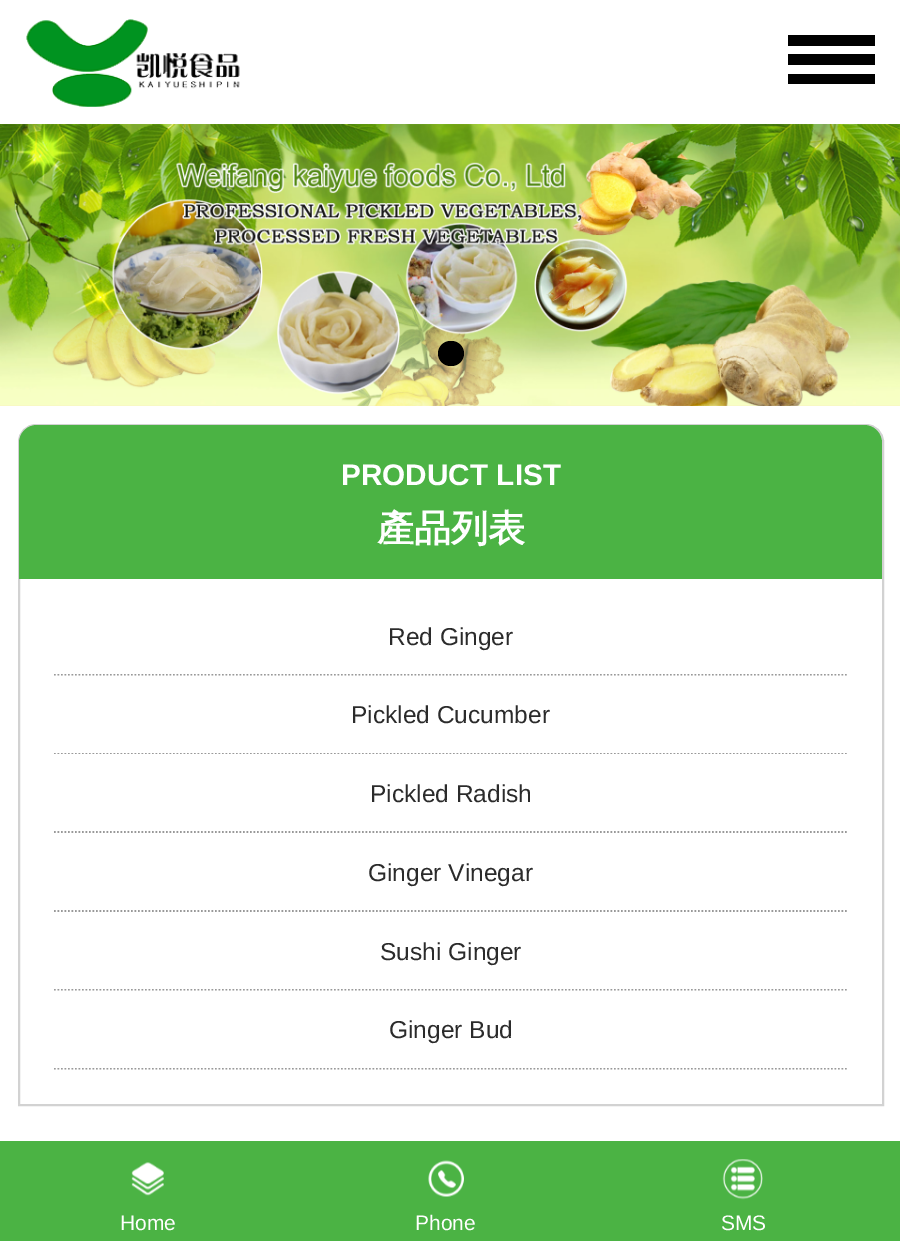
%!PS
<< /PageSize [900 1241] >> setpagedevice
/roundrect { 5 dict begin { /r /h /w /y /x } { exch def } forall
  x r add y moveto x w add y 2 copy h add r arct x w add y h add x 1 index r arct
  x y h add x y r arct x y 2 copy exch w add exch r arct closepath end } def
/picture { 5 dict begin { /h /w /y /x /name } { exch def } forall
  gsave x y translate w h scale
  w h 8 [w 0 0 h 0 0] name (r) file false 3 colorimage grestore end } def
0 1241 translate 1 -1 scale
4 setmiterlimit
1 setgray
0 0 900 1241 rectfill
(img1.rgb) 26 19 214 88 picture
0 setgray
788 35 87 11 rectfill
788 54 87 11 rectfill
788 74 87 10 rectfill
(img2.rgb) 0 124 900 282 picture
438 341 26 25 12.5 roundrect fill
0.824 setgray
2 setlinewidth
newpath 36 425 moveto 866 425 lineto 875.5 425 883 432.5 883 442 curveto 883 1105 lineto 19 1105 lineto 19 442 lineto 19 432.5 26.5 425 36 425 curveto closepath stroke
0.294 0.702 0.267 setrgbcolor
newpath 37 425 moveto 864 425 lineto 874 425 882 433 882 443 curveto 882 579 lineto 19 579 lineto 19 443 lineto 19 433 27 425 37 425 curveto closepath fill
/LiberationSans-Bold [29.75 0 0 -29.75 0 0] selectfont
1 setgray
341 485 moveto (PRODUCT LIST) show
/WenQuanYiZenHei-Bold [37 0 0 -37 0 0] selectfont
377 541 moveto (產品列表) show
0.6 setgray
1.8 setlinewidth
[1.75 1.75] 0 setdash
newpath 54 674.5 moveto 847 674.5 lineto stroke
1 setgray
54 673 793 1 rectfill
/LiberationSans-Regular [24.5 0 0 -24.5 0 0] selectfont
0.169 setgray
388 645 moveto (Red Ginger) show
0.6 setgray
newpath 54 753.5 moveto 847 753.5 lineto stroke
1 setgray
54 752 793 1 rectfill
0.169 setgray
351 723 moveto (Pickled Cucumber) show
1 setgray
54 754 793 1 rectfill
0.6 setgray
newpath 54 832 moveto 847 832 lineto stroke
0.169 setgray
370 802 moveto (Pickled Radish) show
0.6 setgray
newpath 54 911 moveto 847 911 lineto stroke
0.169 setgray
368 881 moveto (Ginger Vinegar) show
0.6 setgray
newpath 54 989.5 moveto 847 989.5 lineto stroke
1 setgray
54 988 793 1 rectfill
0.169 setgray
380 960 moveto (Sushi Ginger) show
0.6 setgray
newpath 54 1068.5 moveto 847 1068.5 lineto stroke
1 setgray
54 1067 793 1 rectfill
0.169 setgray
389 1038 moveto (Ginger Bud) show
0.294 0.702 0.267 setrgbcolor
0 1141 900 100 rectfill
(img3.rgb) 131 1162 33 34 picture
/LiberationSans-Regular [21 0 0 -21 0 0] selectfont
1 setgray
120 1230 moveto (Home) show
(img4.rgb) 428 1160 36 37 picture
415 1230 moveto (Phone) show
(img5.rgb) 722 1159 41 41 picture
721 1230 moveto (SMS) show
showpage
